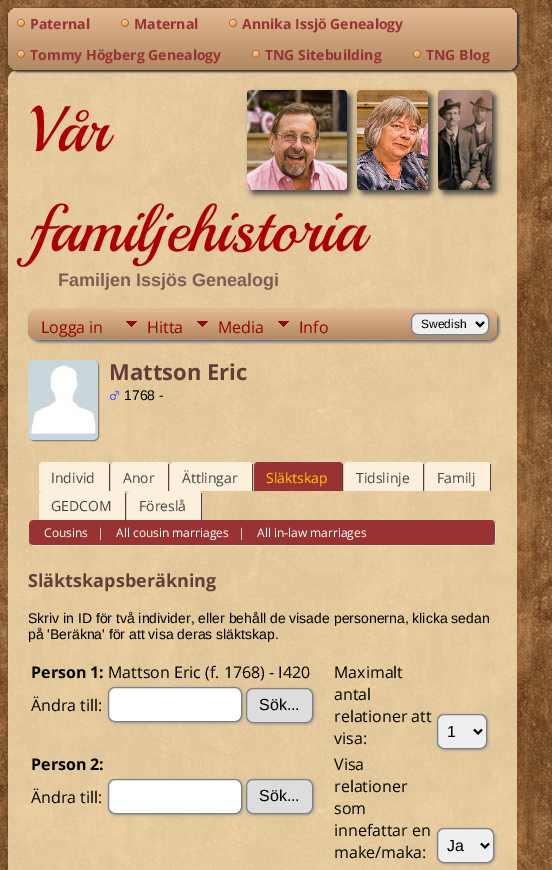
%!PS
<< /PageSize [552 870] /PageUsesTransparency true >> setpagedevice
/alpha { dup .setfillconstantalpha .setstrokeconstantalpha } def
/roundrect { 5 dict begin { /r /h /w /y /x } { exch def } forall
  x r add y moveto x w add y 2 copy h add r arct x w add y h add x 1 index r arct
  x y h add x y r arct x y 2 copy exch w add exch r arct closepath end } def
/shadow { 12 dict begin { /a /b /q /h /w /y /x } { exch def } forall gsave /was 0 def
  9 -2 -9 { dup b mul 4 div /e exch def 1 sub .425 mul 2.718 exch exp 1 add a .99 .min exch div /now exch def
    1 1 now sub 1 was sub div sub alpha /was now def
    w h .min e 2 mul add 0 gt { x e sub y e sub w e 2 mul add h e 2 mul add
      q e add b .6 mul add w h .min 2 div e add .min 0 .max roundrect fill } if } for grestore end } def
/picture { 5 dict begin { /h /w /y /x /name } { exch def } forall
  gsave x y translate w h scale
  w h 8 [w 0 0 h 0 0] name (r) file false 3 colorimage grestore end } def
0 .pushpdf14devicefilter
0 870 translate 1 -1 scale
4 setmiterlimit
1 setgray
0 0 552 870 rectfill
(img1.rgb) 0 0 552 870 picture
0.8 alpha
0.992 0.902 0.722 setrgbcolor
8 70 509 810 10 roundrect fill
1 alpha
0.2 setgray
8 8 511 64 11 1 1 shadow
gsave 8 8 509 62 10 roundrect clip newpath
<< /ShadingType 2 /ColorSpace /DeviceRGB /Coords [263 8 263 70] /Extend [true true] /Function << /FunctionType 2 /Domain [0 1] /C0 [0.886 0.725 0.576] /C1 [0.698 0.537 0.388] /N 1 >> >> shfill grestore
(img2.rgb) 17 19 8 8 picture
/OpenSans-Bold [14 0 0 -14 0 0] selectfont
0.6 0.2 0.2 setrgbcolor
30 29 moveto (Paternal) show
(img2.rgb) 121 19 8 8 picture
134 29 moveto (Maternal) show
(img2.rgb) 229 19 8 8 picture
242 29 moveto (Annika Issjö Genealogy) show
(img3.rgb) 17 50 8 8 picture
30 60 moveto (Tommy Högberg Genealogy) show
(img3.rgb) 252 50 8 8 picture
265 60 moveto (TNG Sitebuilding) show
(img3.rgb) 413 50 8 8 picture
426 60 moveto (TNG Blog) show
0.267 setgray
442 94 54 100 4 3 1 shadow
(img6.rgb) 438 90 54 100 picture
361 94 71 100 4 3 1 shadow
(img5.rgb) 357 90 71 100 picture
251 94 100 100 4 3 1 shadow
(img4.rgb) 247 90 100 100 picture
/Playball-Regular [64 0 0 -64 0 0] selectfont
0.667 0 0 setrgbcolor
28 151 moveto (Vår) show
28 251 moveto (familjehistoria) show
/LiberationSans-Bold [18 0 0 -18 0 0] selectfont
0.51 0.349 0.325 setrgbcolor
58 286 moveto (Familjen Issjös Genealogi) show
0.4 setgray
30 311 469 31 10 1.5 1 shadow
0.886 0.725 0.576 setrgbcolor
28 309 469 31 10 roundrect fill
gsave
28 309 469 31 10 roundrect clip newpath
gsave newpath 38 309 moveto 487 309 lineto 492.5 309 497 313.5 497 319 curveto 497 339 lineto 28 339 lineto 28 319 lineto 28 313.5 32.5 309 38 309 curveto closepath clip newpath
<< /ShadingType 2 /ColorSpace /DeviceRGB /Coords [263 309 263 339] /Extend [true true] /Function << /FunctionType 2 /Domain [0 1] /C0 [0.886 0.725 0.576] /C1 [0.698 0.537 0.388] /N 1 >> >> shfill grestore
grestore
0.6 setgray
33 339 459 1 rectfill
/OpenSans-Regular [16 0 0 -16 0 0] selectfont
0.6 0 0 setrgbcolor
41 333 moveto (Logga in) show
0.886 0.725 0.576 setrgbcolor
117 311 217 1 rectfill
(img7.rgb) 117 312 71 27 picture
0.6 0 0 setrgbcolor
147 333 moveto (Hitta) show
(img8.rgb) 188 312 81 27 picture
218 333 moveto (Media) show
(img9.rgb) 269 312 65 27 picture
299 333 moveto (Info) show
0.6 setgray
412 314 78 22 7 1.5 1 shadow
0.937 setgray
411.5 313.5 77 21 6.5 roundrect gsave fill grestore
0.502 setgray
stroke
0 setgray
2 setlinewidth
newpath 476 322 moveto 480 326 lineto 484 322 lineto stroke
/LiberationSans-Regular [12 0 0 -12 0 0] selectfont
421 328 moveto (Swedish) show
0.467 setgray
29 361 70 80 5 0.5 1 shadow
(img10.rgb) 28 360 70 80 picture
/OpenSans-Bold [22 0 0 -22 0 0] selectfont
0.4 0.235 0.212 setrgbcolor
109 380 moveto (Mattson Eric) show
(img11.rgb) 110 391 9 9 picture
/LiberationSans-Regular [14 0 0 -14 0 0] selectfont
0 setgray
124 400 moveto (1768 -) show
0.988 0.941 0.863 setrgbcolor
newpath 43 462 moveto 106 462 lineto 108 462 110 464 110 466 curveto 110 491 lineto 39 491 lineto 39 466 lineto 39 464 41 462 43 462 curveto closepath fill
0.267 setgray
109 464 1 27 rectfill
/OpenSans-Regular [14 0 0 -14 0 0] selectfont
51 483 moveto (Individ) show
0.988 0.941 0.863 setrgbcolor
newpath 115 462 moveto 165 462 lineto 167 462 169 464 169 466 curveto 169 491 lineto 111 491 lineto 111 466 lineto 111 464 113 462 115 462 curveto closepath fill
0.267 setgray
168 464 1 27 rectfill
123 483 moveto (Anor) show
0.988 0.941 0.863 setrgbcolor
newpath 174 462 moveto 249 462 lineto 251 462 253 464 253 466 curveto 253 491 lineto 170 491 lineto 170 466 lineto 170 464 172 462 174 462 curveto closepath fill
0.267 setgray
252 464 1 27 rectfill
182 483 moveto (Ättlingar) show
0.6 0.2 0.2 setrgbcolor
newpath 258 462 moveto 339 462 lineto 341 462 343 464 343 466 curveto 343 491 lineto 254 491 lineto 254 466 lineto 254 464 256 462 258 462 curveto closepath fill
0.267 setgray
342 464 1 27 rectfill
1 0.8 0 setrgbcolor
266 483 moveto (Släktskap) show
0.988 0.941 0.863 setrgbcolor
newpath 348 462 moveto 420 462 lineto 422 462 424 464 424 466 curveto 424 491 lineto 344 491 lineto 344 466 lineto 344 464 346 462 348 462 curveto closepath fill
0.267 setgray
423 464 1 27 rectfill
356 483 moveto (Tidslinje) show
0.988 0.941 0.863 setrgbcolor
newpath 429 462 moveto 487 462 lineto 489 462 491 464 491 466 curveto 491 491 lineto 425 491 lineto 425 466 lineto 425 464 427 462 429 462 curveto closepath fill
0.267 setgray
490 464 1 27 rectfill
437 483 moveto (Familj) show
0.988 0.941 0.863 setrgbcolor
newpath 43 491 moveto 122 491 lineto 124 491 126 493 126 495 curveto 126 520 lineto 39 520 lineto 39 495 lineto 39 493 41 491 43 491 curveto closepath fill
0.267 setgray
125 493 1 27 rectfill
51 511 moveto (GEDCOM) show
0.988 0.941 0.863 setrgbcolor
newpath 131 491 moveto 198 491 lineto 200 491 202 493 202 495 curveto 202 520 lineto 127 520 lineto 127 495 lineto 127 493 129 491 131 491 curveto closepath fill
0.267 setgray
201 493 1 27 rectfill
139 511 moveto (Föreslå) show
0.6 0.2 0.2 setrgbcolor
29 520 467 26 4 roundrect fill
0.867 setgray
newpath 33 520 moveto 492 520 lineto 494 520 496 522 496 524 curveto 496 542 lineto 496 544 494 546 492 546 curveto 33 546 lineto 31 546 29 544 29 542 curveto 29 524 lineto 29 522 31 520 33 520 curveto closepath 33 520 moveto 492 520 lineto 494 520 495 522 495 524 curveto 495 542 lineto 495 544 494 545 492 545 curveto 33 545 lineto 31 545 29 544 29 542 curveto 29 524 lineto 29 522 31 520 33 520 curveto closepath eofill
/OpenSans-Regular [12 0 0 -12 0 0] selectfont
1 setgray
44 537 moveto (Cousins) show
97 537 moveto (|) show
116 537 moveto (All cousin marriages) show
238 537 moveto (|) show
257 537 moveto (All in-law marriages) show
/OpenSans-Bold [18 0 0 -18 0 0] selectfont
0.4 0.235 0.212 setrgbcolor
28 587 moveto (Släktskapsberäkning) show
/LiberationSans-Regular [14 0 0 -14 0 0] selectfont
0 setgray
28 623 moveto (Skriv in ID för två individer, eller behåll de visade personerna, klicka sedan) show
28 639 moveto (på 'Beräkna' för att visa deras släktskap.) show
/OpenSans-Bold [16 0 0 -16 0 0] selectfont
31 678 moveto (Person 1:) show
/OpenSans-Regular [16 0 0 -16 0 0] selectfont
108 678 moveto (Mattson Eric \(f. 1768\) - I420) show
31 711 moveto (Ändra till:) show
0.6 setgray
109 688 134 35 7 1.5 1 shadow
1 setgray
108.5 687.5 133 34 6.5 roundrect gsave fill grestore
0.502 setgray
1 setlinewidth
stroke
0.6 setgray
247 689 67 35 7 1.5 1 shadow
0.867 setgray
246.5 688.5 66 34 6.5 roundrect gsave fill grestore
0.502 setgray
stroke
/LiberationSans-Regular [16 0 0 -16 0 0] selectfont
0 setgray
259 710 moveto (Sök...) show
/OpenSans-Bold [16 0 0 -16 0 0] selectfont
31 770 moveto (Person 2:) show
/OpenSans-Regular [16 0 0 -16 0 0] selectfont
31 803 moveto (Ändra till:) show
0.6 setgray
109 780 134 35 7 1.5 1 shadow
1 setgray
108.5 779.5 133 34 6.5 roundrect gsave fill grestore
0.502 setgray
stroke
0.6 setgray
247 780 67 35 7 1.5 1 shadow
0.867 setgray
246.5 779.5 66 34 6.5 roundrect gsave fill grestore
0.502 setgray
stroke
/LiberationSans-Regular [16 0 0 -16 0 0] selectfont
0 setgray
259 801 moveto (Sök...) show
/OpenSans-Regular [16 0 0 -16 0 0] selectfont
334 678 moveto (Maximalt) show
334 700 moveto (antal) show
334 722 moveto (relationer att) show
334 744 moveto (visa:) show
0.6 setgray
438 715 50 35 7 1.5 1 shadow
0.937 setgray
437.5 714.5 49 34 6.5 roundrect gsave fill grestore
0.502 setgray
stroke
0 setgray
2 setlinewidth
newpath 474 729.5 moveto 478 733.5 lineto 482 729.5 lineto stroke
/LiberationSans-Regular [16 0 0 -16 0 0] selectfont
447 737 moveto (1) show
/OpenSans-Regular [16 0 0 -16 0 0] selectfont
334 770 moveto (Visa) show
334 792 moveto (relationer) show
334 814 moveto (som) show
334 836 moveto (innefattar en) show
334 858 moveto (make/maka:) show
0.6 setgray
438 829 57 35 7 1.5 1 shadow
0.937 setgray
437.5 828.5 56 34 6.5 roundrect gsave fill grestore
0.502 setgray
1 setlinewidth
stroke
0 setgray
2 setlinewidth
newpath 481 843.5 moveto 485 847.5 lineto 489 843.5 lineto stroke
/LiberationSans-Regular [16 0 0 -16 0 0] selectfont
447 851 moveto (Ja) show
.poppdf14devicefilter showpage
